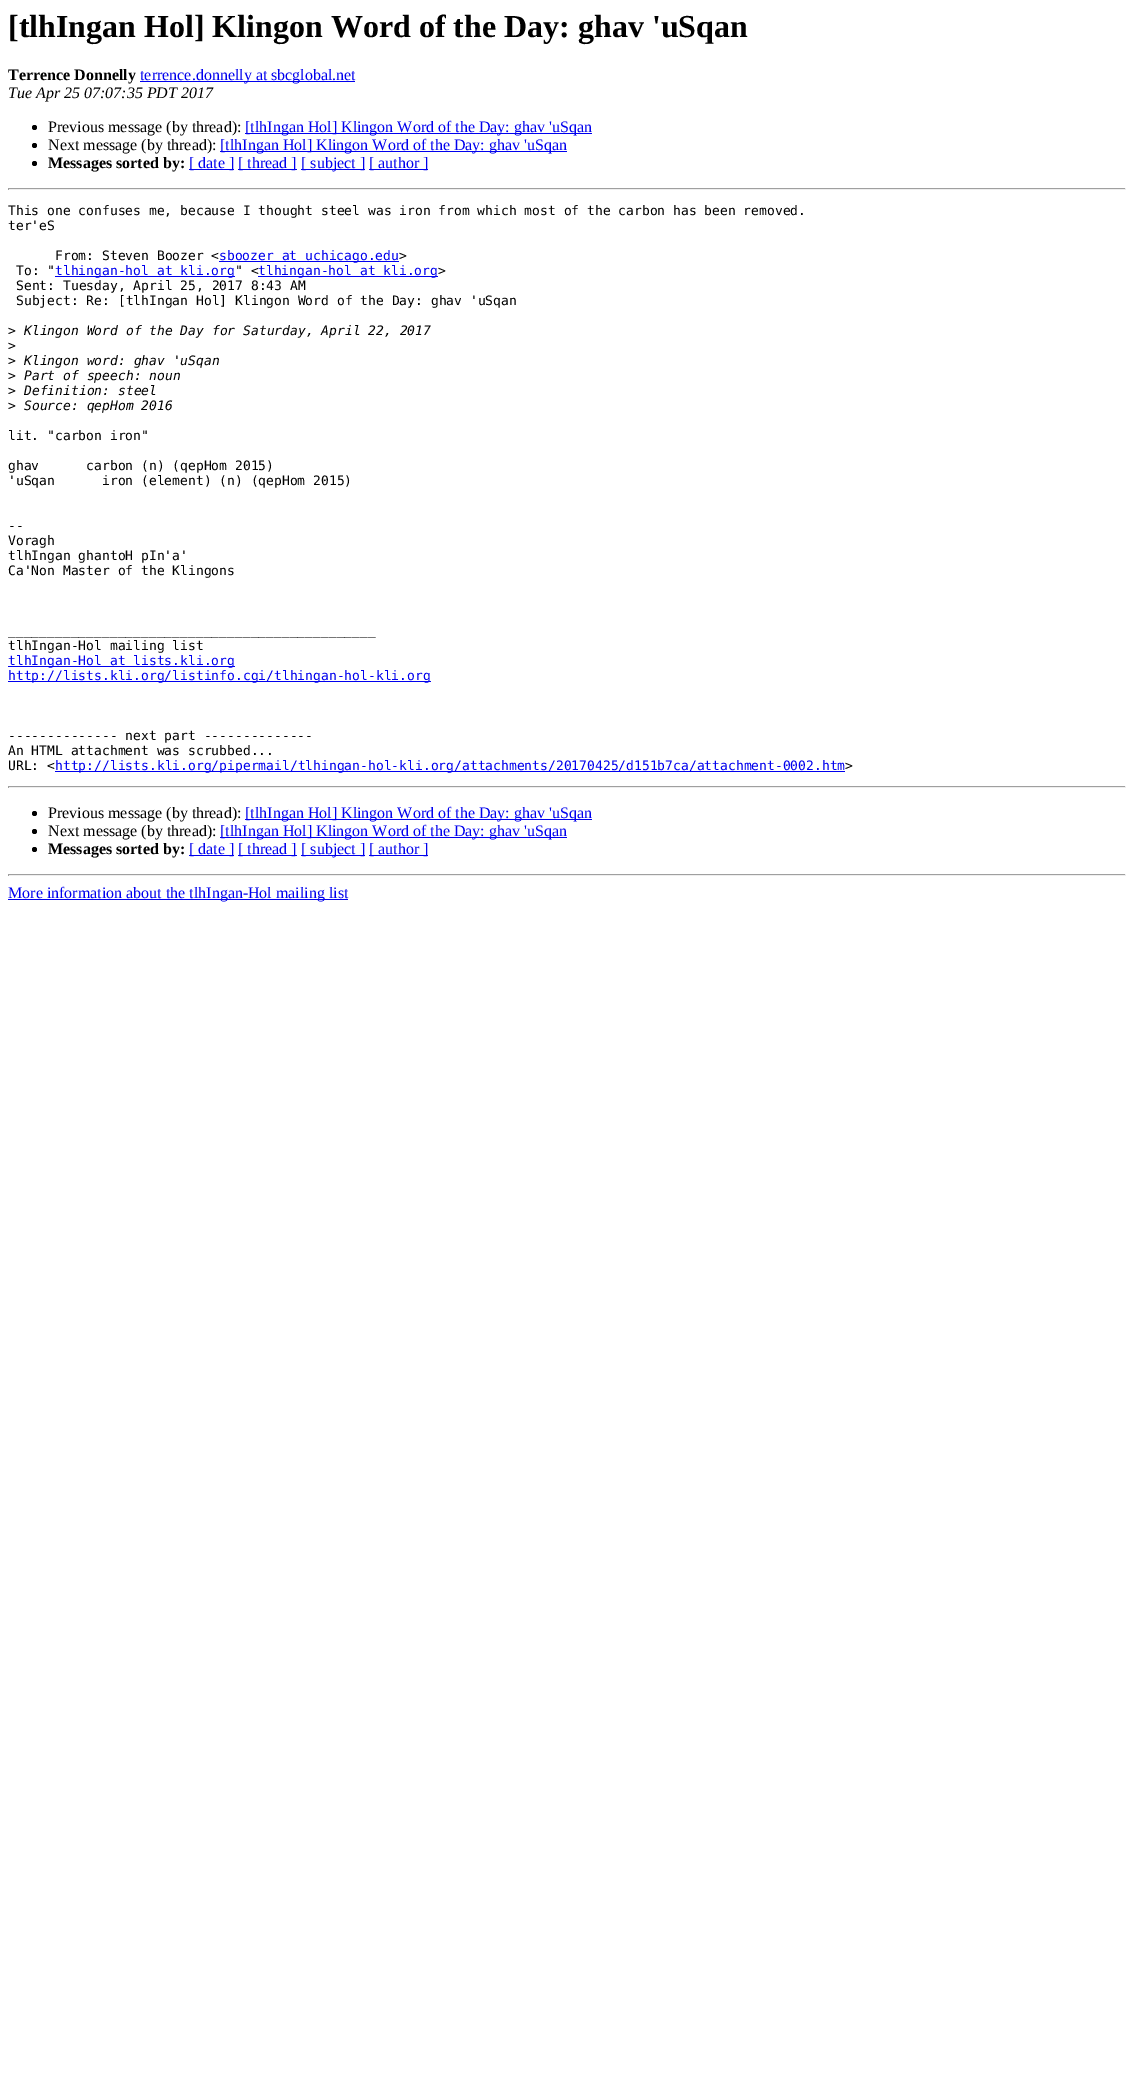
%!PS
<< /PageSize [1134 2078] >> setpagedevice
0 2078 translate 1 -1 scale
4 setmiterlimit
1 setgray
0 0 1134 2078 rectfill
/LiberationSerif-Bold [32 0 0 -32 0 0] selectfont
0 setgray
8 37 moveto ([tlhIngan Hol] Klingon Word of the Day: ghav 'uSqan) show
/LiberationSerif-Bold [16 0 0 -16 0 0] selectfont
8 80 moveto (Terrence Donnelly) show
0 0 0.933 setrgbcolor
140 81 215 1 rectfill
/LiberationSerif-Regular [16 0 0 -16 0 0] selectfont
140 80 moveto (terrence.donnelly at sbcglobal.net) show
/LiberationSerif-Italic [16 0 0 -16 0 0] selectfont
0 setgray
8 98 moveto (Tue Apr 25 07:07:35 PDT 2017) show
newpath 34.5 127.5 2.5 0 360 arc closepath fill
/LiberationSerif-Regular [16 0 0 -16 0 0] selectfont
48 132 moveto (Previous message \(by thread\):) show
0 0 0.933 setrgbcolor
245 133 347 1 rectfill
245 132 moveto ([tlhIngan Hol] Klingon Word of the Day: ghav 'uSqan) show
0 setgray
newpath 34.5 145.5 2.5 0 360 arc closepath fill
48 150 moveto (Next message \(by thread\):) show
0 0 0.933 setrgbcolor
220 151 347 1 rectfill
220 150 moveto ([tlhIngan Hol] Klingon Word of the Day: ghav 'uSqan) show
0 setgray
newpath 34.5 163.5 2.5 0 360 arc closepath fill
/LiberationSerif-Bold [16 0 0 -16 0 0] selectfont
48 168 moveto (Messages sorted by:) show
0 0 0.933 setrgbcolor
189 169 45 1 rectfill
/LiberationSerif-Regular [16 0 0 -16 0 0] selectfont
189 168 moveto ([ date ]) show
238 169 59 1 rectfill
238 168 moveto ([ thread ]) show
301 169 64 1 rectfill
301 168 moveto ([ subject ]) show
369 169 59 1 rectfill
369 168 moveto ([ author ]) show
0.624 setgray
8 188 1118 1 rectfill
0.933 setgray
1125 188 1 2 rectfill
8 189 1118 1 rectfill
0.624 setgray
8 188 1 2 rectfill
/DejaVuSansMono-Regular [13 0 0 -13 0 0] selectfont
0 setgray
8 215 moveto (This one confuses me, because I thought steel was iron from which most of the carbon has been removed.) show
8 230 moveto (ter'eS) show
55 260 moveto (From: Steven Boozer <) show
0 0 0.933 setrgbcolor
219 261 180 1 rectfill
219 260 moveto (sboozer at uchicago.edu) show
0 setgray
399 260 moveto (>) show
16 275 moveto (To: ") show
0 0 0.933 setrgbcolor
55 276 180 1 rectfill
55 275 moveto (tlhingan-hol at kli.org) show
0 setgray
235 275 moveto (" <) show
0 0 0.933 setrgbcolor
258 276 180 1 rectfill
258 275 moveto (tlhingan-hol at kli.org) show
0 setgray
438 275 moveto (>) show
16 290 moveto (Sent: Tuesday, April 25, 2017 8:43 AM) show
16 305 moveto (Subject: Re: [tlhIngan Hol] Klingon Word of the Day: ghav 'uSqan) show
8 335 moveto (>) show
/DejaVuSansMono-Italic [13 0 0 -13 0 0] selectfont
24 335 moveto (Klingon Word of the Day for Saturday, April 22, 2017) show
/DejaVuSansMono-Regular [13 0 0 -13 0 0] selectfont
8 350 moveto (>) show
8 365 moveto (>) show
/DejaVuSansMono-Italic [13 0 0 -13 0 0] selectfont
24 365 moveto (Klingon word: ghav 'uSqan) show
/DejaVuSansMono-Regular [13 0 0 -13 0 0] selectfont
8 380 moveto (>) show
/DejaVuSansMono-Italic [13 0 0 -13 0 0] selectfont
24 380 moveto (Part of speech: noun) show
/DejaVuSansMono-Regular [13 0 0 -13 0 0] selectfont
8 395 moveto (>) show
/DejaVuSansMono-Italic [13 0 0 -13 0 0] selectfont
24 395 moveto (Definition: steel) show
/DejaVuSansMono-Regular [13 0 0 -13 0 0] selectfont
8 410 moveto (>) show
/DejaVuSansMono-Italic [13 0 0 -13 0 0] selectfont
24 410 moveto (Source: qepHom 2016) show
/DejaVuSansMono-Regular [13 0 0 -13 0 0] selectfont
8 440 moveto (lit. "carbon iron") show
8 470 moveto (ghav      carbon \(n\) \(qepHom 2015\)) show
8 485 moveto ('uSqan      iron \(element\) \(n\) \(qepHom 2015\)) show
8 530 moveto (--) show
8 545 moveto (Voragh) show
8 560 moveto (tlhIngan ghantoH pIn'a') show
8 575 moveto (Ca'Non Master of the Klingons) show
8 635 moveto (_______________________________________________) show
8 650 moveto (tlhIngan-Hol mailing list) show
0 0 0.933 setrgbcolor
8 666 227 1 rectfill
8 665 moveto (tlhIngan-Hol at lists.kli.org) show
8 681 423 1 rectfill
8 680 moveto (http://lists.kli.org/listinfo.cgi/tlhingan-hol-kli.org) show
0 setgray
8 740 moveto (-------------- next part --------------) show
8 755 moveto (An HTML attachment was scrubbed...) show
8 770 moveto (URL: <) show
0 0 0.933 setrgbcolor
55 771 790 1 rectfill
55 770 moveto (http://lists.kli.org/pipermail/tlhingan-hol-kli.org/attachments/20170425/d151b7ca/attachment-0002.htm) show
0 setgray
845 770 moveto (>) show
0.624 setgray
8 786 1118 1 rectfill
0.933 setgray
1125 786 1 2 rectfill
8 787 1118 1 rectfill
0.624 setgray
8 786 1 2 rectfill
0 setgray
newpath 34.5 813.5 2.5 0 360 arc closepath fill
/LiberationSerif-Regular [16 0 0 -16 0 0] selectfont
48 818 moveto (Previous message \(by thread\):) show
0 0 0.933 setrgbcolor
245 819 347 1 rectfill
245 818 moveto ([tlhIngan Hol] Klingon Word of the Day: ghav 'uSqan) show
0 setgray
newpath 34.5 831.5 2.5 0 360 arc closepath fill
48 836 moveto (Next message \(by thread\):) show
0 0 0.933 setrgbcolor
220 837 347 1 rectfill
220 836 moveto ([tlhIngan Hol] Klingon Word of the Day: ghav 'uSqan) show
0 setgray
newpath 34.5 849.5 2.5 0 360 arc closepath fill
/LiberationSerif-Bold [16 0 0 -16 0 0] selectfont
48 854 moveto (Messages sorted by:) show
0 0 0.933 setrgbcolor
189 855 45 1 rectfill
/LiberationSerif-Regular [16 0 0 -16 0 0] selectfont
189 854 moveto ([ date ]) show
238 855 59 1 rectfill
238 854 moveto ([ thread ]) show
301 855 64 1 rectfill
301 854 moveto ([ subject ]) show
369 855 59 1 rectfill
369 854 moveto ([ author ]) show
0.624 setgray
8 874 1118 1 rectfill
0.933 setgray
1125 874 1 2 rectfill
8 875 1118 1 rectfill
0.624 setgray
8 874 1 2 rectfill
0 0 0.933 setrgbcolor
8 899 340 1 rectfill
8 898 moveto (More information about the tlhIngan-Hol mailing list) show
showpage
